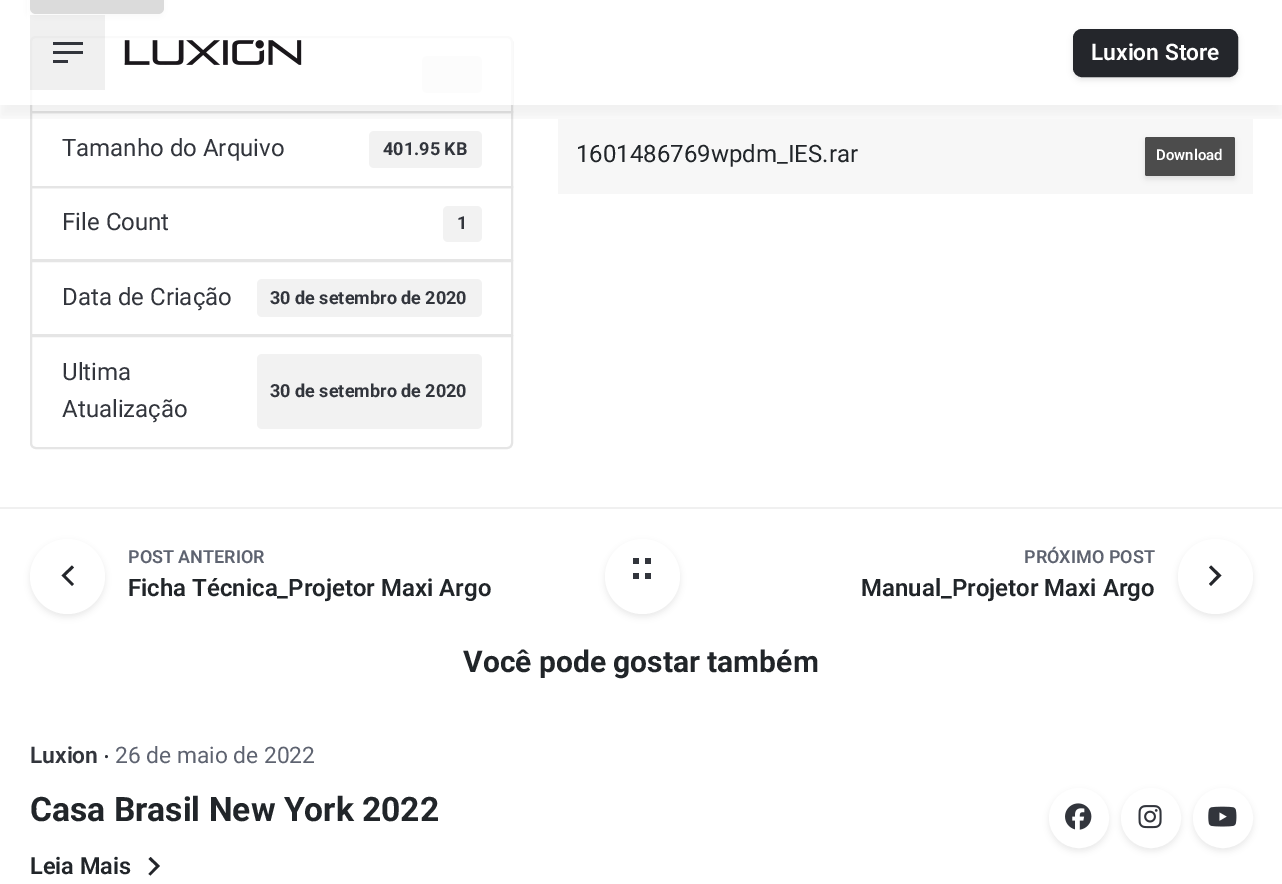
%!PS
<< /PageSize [1282 884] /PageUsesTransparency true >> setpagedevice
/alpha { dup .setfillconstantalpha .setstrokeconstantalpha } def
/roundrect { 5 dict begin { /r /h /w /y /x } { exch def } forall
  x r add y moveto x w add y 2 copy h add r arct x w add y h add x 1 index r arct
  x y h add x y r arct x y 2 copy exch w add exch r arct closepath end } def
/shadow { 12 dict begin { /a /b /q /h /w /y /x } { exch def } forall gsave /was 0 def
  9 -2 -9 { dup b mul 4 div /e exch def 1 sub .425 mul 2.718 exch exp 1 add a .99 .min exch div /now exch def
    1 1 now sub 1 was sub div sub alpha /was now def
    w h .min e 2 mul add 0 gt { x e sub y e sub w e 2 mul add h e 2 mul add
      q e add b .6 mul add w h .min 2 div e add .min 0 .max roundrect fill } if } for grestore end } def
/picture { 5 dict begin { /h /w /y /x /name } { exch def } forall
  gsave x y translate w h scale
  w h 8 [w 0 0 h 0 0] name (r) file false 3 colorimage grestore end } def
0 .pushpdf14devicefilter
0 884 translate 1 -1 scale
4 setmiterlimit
1 setgray
0 0 1282 884 rectfill
0 setgray
30 -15 134 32 6 3 0.1 shadow
0.298 setgray
30 -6 134 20 6 roundrect fill
0.898 setgray
2 setlinewidth
newpath 36 37 moveto 507 37 lineto 510 37 512 39 512 42 curveto 512 112 lineto 31 112 lineto 31 42 lineto 31 39 33 37 36 37 curveto closepath stroke
0.949 setgray
422 56 60 37 5 roundrect fill
0.898 setgray
31 112 481 75 rectstroke
0.949 setgray
369 131 113 37 5 roundrect fill
0.969 setgray
558 119 695 75 rectfill
gsave
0 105 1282 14 rectclip
0 setgray
0 12 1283 105 0 6 0.05 shadow
grestore
0.8 alpha
1 setgray
27 0 486 105 rectfill
0.06 alpha
0 setgray
30 15 75 75 rectfill
1 alpha
0.196 0.208 0.235 setrgbcolor
53 42 30 3 rectfill
53 51 30 3 rectfill
53 60 15 3 rectfill
(img1.rgb) 124 40 178 25 picture
0 setgray
1073 32 165 48 9 3 0.1 shadow
0.141 0.149 0.169 setrgbcolor
1074.5 30.5 162 45 7.5 roundrect gsave fill grestore
3 setlinewidth
stroke
/Roboto-SemiBold [22.75 0 0 -22.75 0 0] selectfont
1 setgray
1091 60 moveto (Luxion Store) show
/Roboto-Regular [24 0 0 -24 0 0] selectfont
0.196 0.208 0.235 setrgbcolor
62 156 moveto (Tamanho do Arquivo) show
/Roboto-Bold [18 0 0 -18 0 0] selectfont
383 155 moveto (401.95 KB) show
0.898 setgray
2 setlinewidth
31 187 481 73 rectstroke
/Roboto-Regular [24 0 0 -24 0 0] selectfont
0.196 0.208 0.235 setrgbcolor
62 230 moveto (File Count) show
0.949 setgray
443 206 39 36 5 roundrect fill
/Roboto-Bold [18 0 0 -18 0 0] selectfont
0.196 0.208 0.235 setrgbcolor
457 229 moveto (1) show
0.898 setgray
31 261 481 74 rectstroke
/Roboto-Regular [24 0 0 -24 0 0] selectfont
0.196 0.208 0.235 setrgbcolor
62 305 moveto (Data de Criação) show
0.949 setgray
257 279 225 38 5 roundrect fill
/Roboto-Bold [18 0 0 -18 0 0] selectfont
0.196 0.208 0.235 setrgbcolor
270 304 moveto (30 de setembro de 2020) show
1 setgray
newpath 31 336 moveto 512 336 lineto 512 443 lineto 512 446 510 448 507 448 curveto 36 448 lineto 33 448 31 446 31 443 curveto closepath gsave fill grestore
0.898 setgray
stroke
/Roboto-Regular [24 0 0 -24 0 0] selectfont
0.196 0.208 0.235 setrgbcolor
62 380 moveto (Ultima) show
0.949 setgray
257 354 225 75 5 roundrect fill
/Roboto-Bold [18 0 0 -18 0 0] selectfont
0.196 0.208 0.235 setrgbcolor
270 397 moveto (30 de setembro de 2020) show
/Roboto-Regular [24 0 0 -24 0 0] selectfont
62 417 moveto (Atualização) show
0.129 0.145 0.161 setrgbcolor
576 162 moveto (1601486769wpdm_IES.rar) show
0 setgray
1145 140 90 39 2 3 0.1 shadow
0.298 setgray
1145 137 90 39 2 roundrect fill
/Roboto-SemiBold [15 0 0 -15 0 0] selectfont
1 setgray
1156 160 moveto (Download) show
0.941 setgray
0 507 1282 2 rectfill
0 setgray
30 542 75 75 37.5 3 0.08 shadow
1 setgray
newpath 67.5 576.5 37.5 0 360 arc closepath fill
0.141 0.149 0.169 setrgbcolor
newpath 74 567.5 moveto 65.5 575.5 lineto 74 584 lineto 72 586 lineto 61.5 575.5 lineto 72 565.5 lineto closepath fill
/Roboto-SemiBold [18 0 0 -18 0 0] selectfont
0.369 0.388 0.439 setrgbcolor
128 563 moveto (POST ANTERIOR) show
/Roboto-SemiBold [24 0 0 -24 0 0] selectfont
0.129 0.145 0.161 setrgbcolor
128 596 moveto (Ficha Técnica_Projetor Maxi Argo) show
0 setgray
605 542 75 75 37.5 3 0.08 shadow
1 setgray
newpath 642.5 576.5 37.5 0 360 arc closepath fill
gsave newpath 627 558 moveto 651 558 lineto 651 564 lineto 627 564 lineto closepath clip newpath
<< /ShadingType 2 /ColorSpace /DeviceRGB /Coords [627 561 651 561] /Extend [true true] /Function << /FunctionType 3 /Domain [0 1] /Functions [<< /FunctionType 2 /Domain [0 1] /C0 [1 1 1] /C1 [1 1 1] /N 1 >> << /FunctionType 2 /Domain [0 1] /C0 [0.196 0.208 0.235] /C1 [0.196 0.208 0.235] /N 1 >> << /FunctionType 2 /Domain [0 1] /C0 [1 1 1] /C1 [1 1 1] /N 1 >> << /FunctionType 2 /Domain [0 1] /C0 [0.196 0.208 0.235] /C1 [0.196 0.208 0.235] /N 1 >>] /Bounds [0.25 0.5 0.75] /Encode [0 1 0 1 0 1 0 1] >> >> shfill grestore
gsave newpath 627 573 moveto 651 573 lineto 651 579 lineto 627 579 lineto closepath clip newpath
<< /ShadingType 2 /ColorSpace /DeviceRGB /Coords [627 576 651 576] /Extend [true true] /Function << /FunctionType 3 /Domain [0 1] /Functions [<< /FunctionType 2 /Domain [0 1] /C0 [1 1 1] /C1 [1 1 1] /N 1 >> << /FunctionType 2 /Domain [0 1] /C0 [0.196 0.208 0.235] /C1 [0.196 0.208 0.235] /N 1 >> << /FunctionType 2 /Domain [0 1] /C0 [1 1 1] /C1 [1 1 1] /N 1 >> << /FunctionType 2 /Domain [0 1] /C0 [0.196 0.208 0.235] /C1 [0.196 0.208 0.235] /N 1 >>] /Bounds [0.25 0.5 0.75] /Encode [0 1 0 1 0 1 0 1] >> >> shfill grestore
/Roboto-SemiBold [18 0 0 -18 0 0] selectfont
0.369 0.388 0.439 setrgbcolor
1024 563 moveto (PRÓXIMO POST) show
/Roboto-SemiBold [24 0 0 -24 0 0] selectfont
0.129 0.145 0.161 setrgbcolor
861 596 moveto (Manual_Projetor Maxi Argo) show
0 setgray
1178 542 75 75 37.5 3 0.08 shadow
1 setgray
newpath 1215.5 576.5 37.5 0 360 arc closepath fill
0.141 0.149 0.169 setrgbcolor
newpath 1209 567.5 moveto 1211 565.5 lineto 1221.5 575.5 lineto 1211 586 lineto 1209 584 lineto 1217 575.5 lineto closepath fill
/Roboto-Bold [30 0 0 -30 0 0] selectfont
0.129 0.145 0.161 setrgbcolor
463 672 moveto (Você pode gostar também) show
/Roboto-SemiBold [22.75 0 0 -22.75 0 0] selectfont
0.196 0.208 0.235 setrgbcolor
30 763 moveto (Luxion) show
/Roboto-Regular [15 0 0 -15 0 0] selectfont
104 762 moveto (•) show
/Roboto-Regular [22.75 0 0 -22.75 0 0] selectfont
0.369 0.388 0.439 setrgbcolor
115 763 moveto (26 de maio de 2022) show
/Roboto-Bold [33.6 0 0 -33.6 0 0] selectfont
0.129 0.145 0.161 setrgbcolor
30 821 moveto (Casa Brasil New York 2022) show
/Roboto-SemiBold [23.5 0 0 -23.5 0 0] selectfont
30 874 moveto (Leia Mais) show
0.141 0.149 0.169 setrgbcolor
newpath 148.5 859 moveto 150.5 857 lineto 160 866 lineto 150.5 875.5 lineto 148.5 874 lineto 156 866 lineto closepath fill
0 setgray
1049 791 60 60 30 3 0.08 shadow
1 setgray
newpath 1079 818 28.5 0 360 arc closepath gsave fill grestore
3 setlinewidth
stroke
(img2.rgb) 1065 803 27 27 picture
0 setgray
1121 791 60 60 30 3 0.08 shadow
1 setgray
newpath 1151 818 28.5 0 360 arc closepath gsave fill grestore
stroke
(img3.rgb) 1138 805 24 24 picture
0 setgray
1193 791 60 60 30 3 0.08 shadow
1 setgray
newpath 1223 818 28.5 0 360 arc closepath gsave fill grestore
stroke
(img4.rgb) 1208 806 29 21 picture
.poppdf14devicefilter showpage
